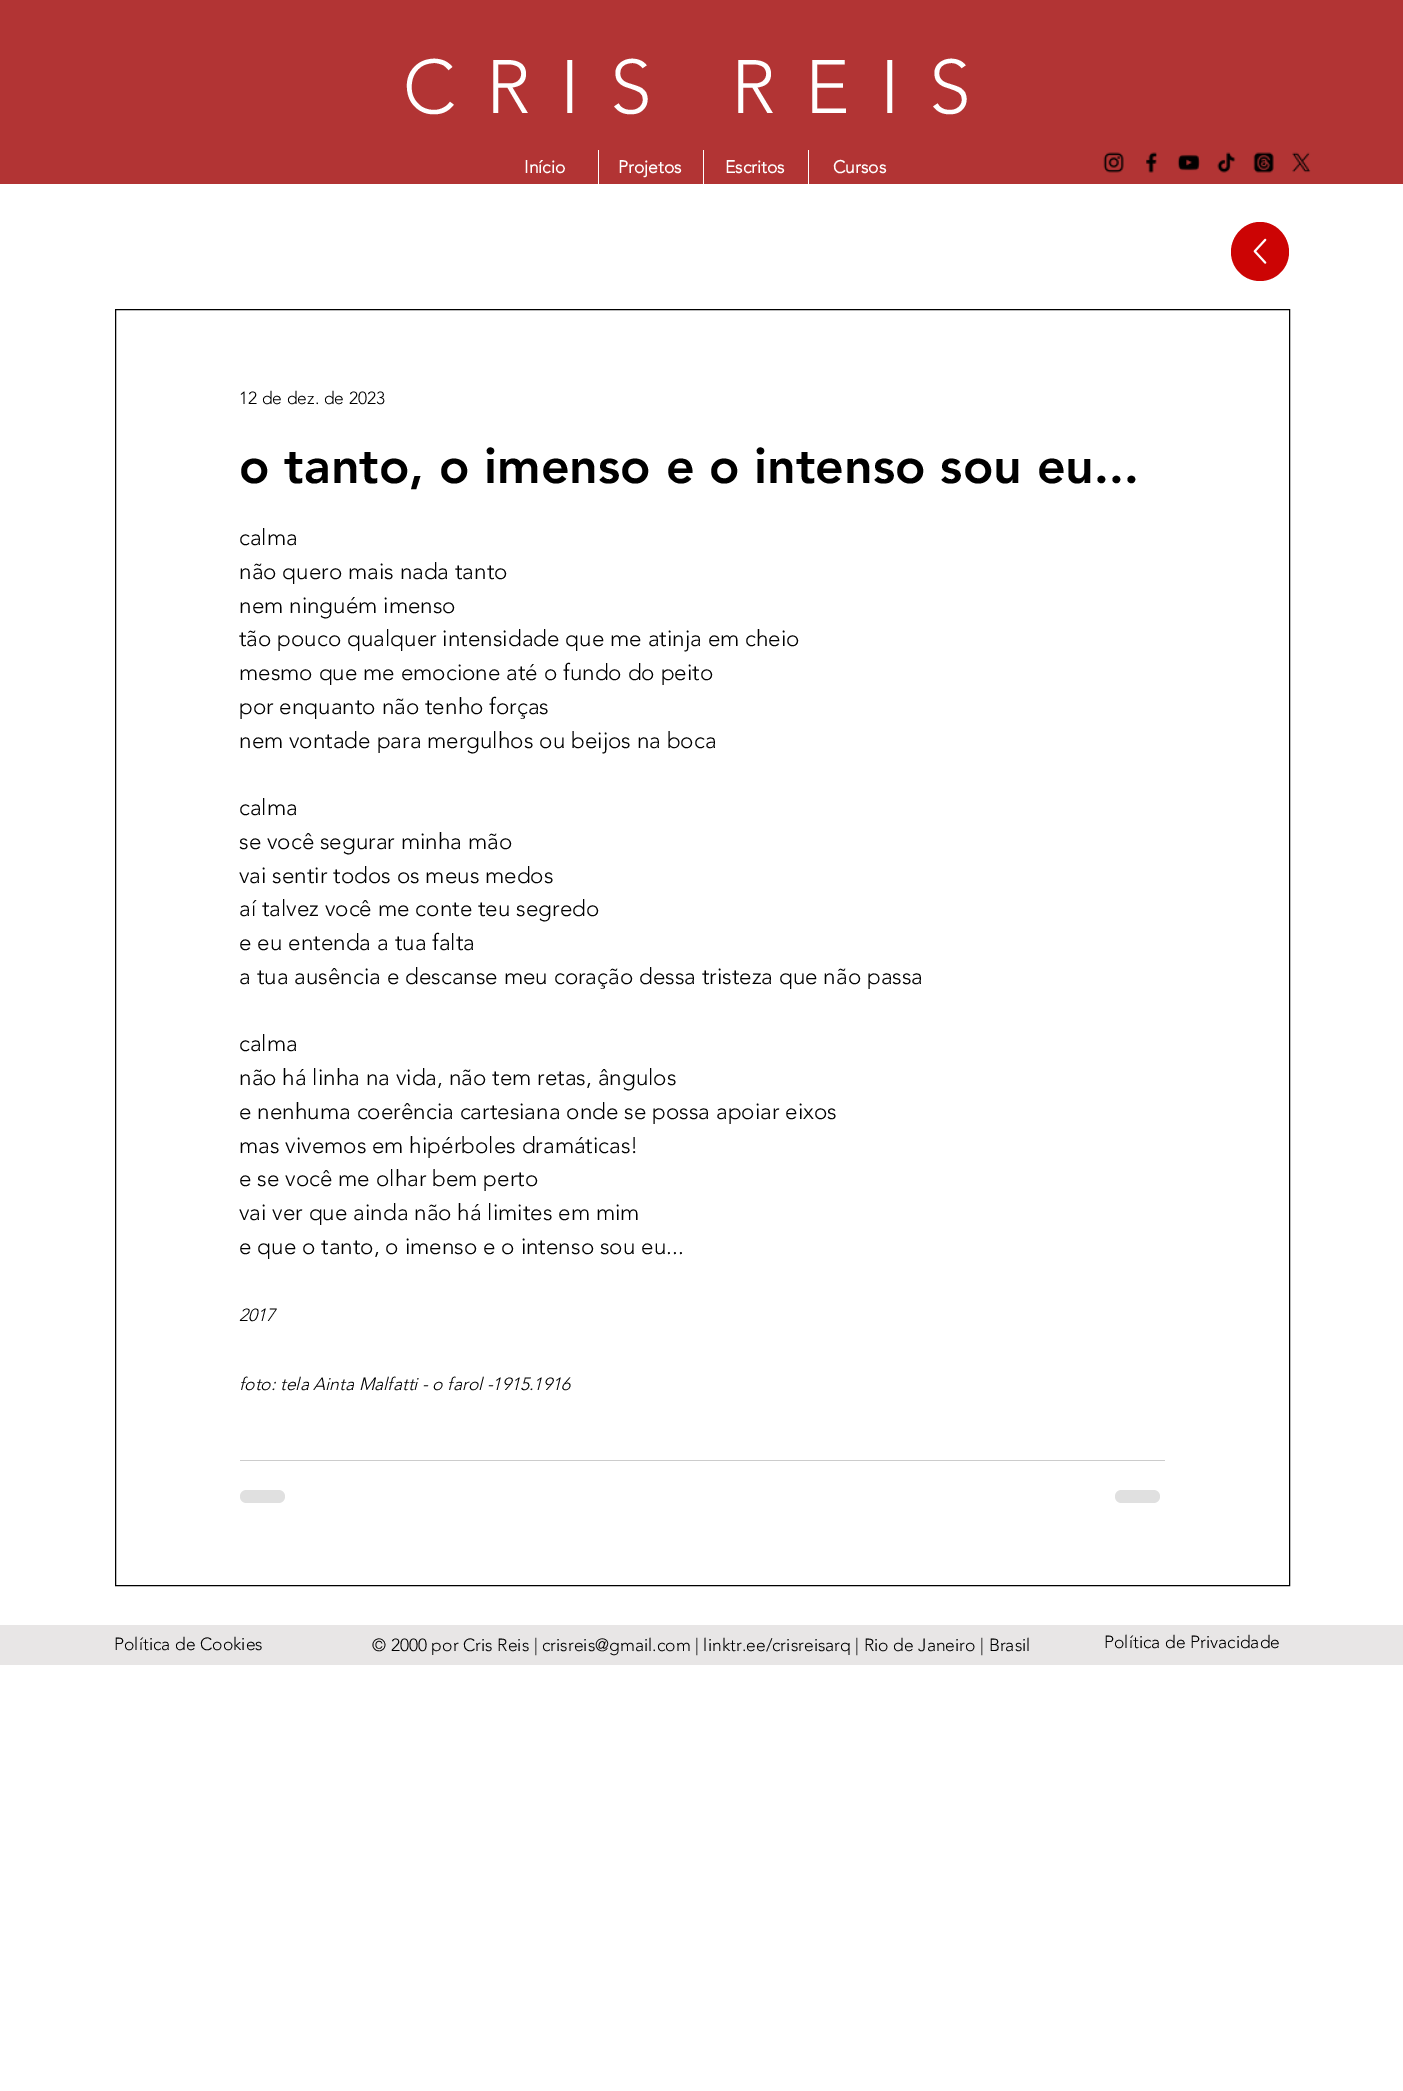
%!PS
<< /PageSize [1403 2091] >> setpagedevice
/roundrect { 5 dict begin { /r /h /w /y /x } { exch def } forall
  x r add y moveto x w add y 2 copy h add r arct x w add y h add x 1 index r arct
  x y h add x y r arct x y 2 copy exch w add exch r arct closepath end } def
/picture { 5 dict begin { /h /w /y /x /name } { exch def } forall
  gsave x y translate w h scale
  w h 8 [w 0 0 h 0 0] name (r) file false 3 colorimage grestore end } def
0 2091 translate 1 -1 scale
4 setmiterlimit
1 setgray
0 0 1403 2091 rectfill
0.698 0.204 0.204 setrgbcolor
0 0 1403 184 rectfill
/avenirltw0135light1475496-Light [75 0 0 -75 0 0] selectfont
1 setgray
403 113 moveto 30 0 (CRIS REIS) ashow
/avenirltw0135light1475496-Bold [17.5 0 0 -17.5 0 0] selectfont
524 173 moveto (Início) show
598 150 1 34 rectfill
618 173 moveto (Projetos) show
703 150 1 34 rectfill
725 173 moveto (Escritos) show
808 150 1 34 rectfill
833 173 moveto (Cursos) show
(img1.rgb) 1103 152 21 21 picture
(img2.rgb) 1146 152 11 21 picture
(img3.rgb) 1177 154 23 17 picture
(img4.rgb) 1217 152 19 21 picture
(img5.rgb) 1253 152 21 21 picture
(img6.rgb) 1292 152 19 21 picture
0.8 0.016 0.016 setrgbcolor
newpath 1231 252 moveto 1231 236 1244 222 1260 222 curveto 1276 222 1289 236 1289 252 curveto 1289 268 1276 281 1260 281 curveto 1244 281 1231 268 1231 252 curveto closepath fill
(img7.rgb) 1253 238 14 26 picture
0 setgray
115.5 309.5 1174 1276 rectstroke
/avenirltw0135light1475496-Light [17.5 0 0 -17.5 0 0] selectfont
239 404 moveto (12 de dez. de 2023) show
/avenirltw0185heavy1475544-Black [50 0 0 -50 0 0] selectfont
239 483 moveto (o tanto, o imenso e o intenso sou eu...) show
/avenirltw0135light1475496-Light [22.5 0 0 -22.5 0 0] selectfont
239 545 moveto (calma) show
239 579 moveto (não quero mais nada tanto) show
239 613 moveto (nem ninguém imenso) show
239 646 moveto (tão pouco qualquer intensidade que me atinja em cheio) show
239 680 moveto (mesmo que me emocione até o fundo do peito) show
239 714 moveto (por enquanto não tenho forças) show
239 748 moveto (nem vontade para mergulhos ou beijos na boca) show
239 815 moveto (calma) show
239 849 moveto (se você segurar minha mão) show
239 883 moveto (vai sentir todos os meus medos) show
239 916 moveto (aí talvez você me conte teu segredo) show
239 950 moveto (e eu entenda a tua falta) show
239 984 moveto (a tua ausência e descanse meu coração dessa tristeza que não passa) show
239 1051 moveto (calma) show
239 1085 moveto (não há linha na vida, não tem retas, ângulos) show
239 1119 moveto (e nenhuma coerência cartesiana onde se possa apoiar eixos) show
239 1153 moveto (mas vivemos em hipérboles dramáticas!) show
239 1186 moveto (e se você me olhar bem perto) show
239 1220 moveto (vai ver que ainda não há limites em mim) show
239 1254 moveto (e que o tanto, o imenso e o intenso sou eu...) show
/avenirltw0135light1475496-LightItalic [17.5 0 0 -17.5 0 0] selectfont
239 1321 moveto (2017) show
239 1390 moveto (foto: tela Ainta Malfatti - o farol -1915.1916) show
0.8 setgray
240 1460 925 1 rectfill
0.878 setgray
240 1490 45 13 6.5 roundrect fill
1115 1490 45 13 6.5 roundrect fill
0.91 0.902 0.902 setrgbcolor
0 1625 1403 40 rectfill
/avenirltw0135light1475496-Light [17.5 0 0 -17.5 0 0] selectfont
0 setgray
114 1650 moveto (Política de Cookies) show
372 1651 moveto (© 2000 por Cris Reis | crisreis@gmail.com | linktr.ee/crisreisarq | Rio de Janeiro | Brasil) show
1104 1648 moveto (Política de Privacidade) show
showpage
